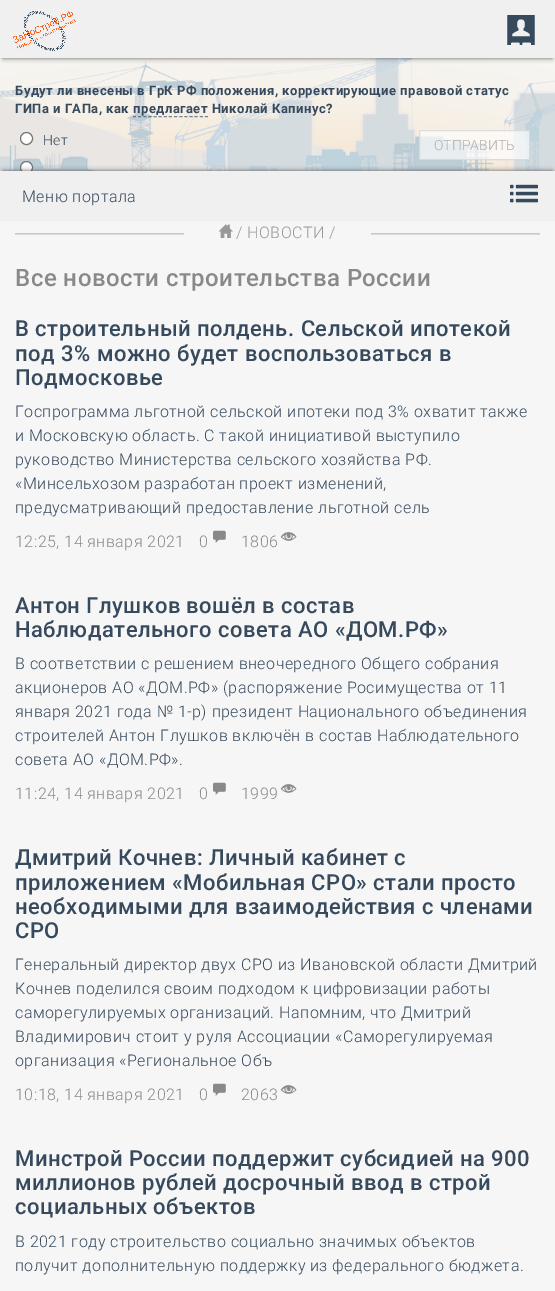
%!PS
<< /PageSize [555 1291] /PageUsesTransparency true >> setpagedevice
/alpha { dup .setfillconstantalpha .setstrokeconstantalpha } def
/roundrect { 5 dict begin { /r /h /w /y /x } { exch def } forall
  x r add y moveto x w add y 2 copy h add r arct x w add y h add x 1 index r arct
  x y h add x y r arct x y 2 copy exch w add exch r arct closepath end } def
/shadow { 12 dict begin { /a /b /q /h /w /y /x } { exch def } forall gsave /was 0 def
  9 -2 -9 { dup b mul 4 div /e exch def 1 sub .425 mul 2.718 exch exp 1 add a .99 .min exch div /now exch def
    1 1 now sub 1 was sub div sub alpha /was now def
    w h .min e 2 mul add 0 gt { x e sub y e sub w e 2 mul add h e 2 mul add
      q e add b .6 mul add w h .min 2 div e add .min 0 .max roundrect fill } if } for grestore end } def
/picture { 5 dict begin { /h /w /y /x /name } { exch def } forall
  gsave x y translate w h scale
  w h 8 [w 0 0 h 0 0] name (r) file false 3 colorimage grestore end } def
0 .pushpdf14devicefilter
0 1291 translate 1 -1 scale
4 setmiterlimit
0.965 setgray
0 0 555 1291 rectfill
(img3.rgb) 0 58 555 113 picture
0.196 setgray
3 6 549 52 0 2.5 0.75 shadow
0.941 setgray
0 0 555 58 rectfill
(img1.rgb) 13 11 63 40 picture
(img2.rgb) 507 15 28 30 picture
/Roboto-Bold [13 0 0 -13 0 0] selectfont
0.216 0.29 0.365 setrgbcolor
15 95 moveto 0.48 0 (Будут ли внесены в ГрК РФ положения, корректирующие правовой статус) ashow
15 113 moveto 0.48 0 (ГИПа и ГАПа, как предлагает Николай Капинус?) ashow
0.66 alpha
[3 2.14] 0 setdash
newpath 133 116.5 moveto 208 116.5 lineto stroke
1 alpha
1 setgray
newpath 26.5 138.5 6 0 360 arc closepath gsave fill grestore
0.463 setgray
[] 0 setdash
stroke
/Roboto-Light [14 0 0 -14 0 0] selectfont
0.216 0.29 0.365 setrgbcolor
43 145 moveto 0.48 0 (Нет) ashow
0.65 alpha
1 setgray
419 130 111 30 rectfill
0.8 setgray
419.5 130.5 110 29 rectstroke
1 alpha
0.682 setgray
434 150 moveto (ОТПРАВИТЬ) show
1 setgray
newpath 26.5 167.5 6 0 360 arc closepath gsave fill grestore
0.463 setgray
stroke
0.196 setgray
3 171 549 44 0 2.5 0.75 shadow
0.941 setgray
0 171 555 50 rectfill
/Roboto-Light [16 0 0 -16 0 0] selectfont
0.216 0.29 0.365 setrgbcolor
22 202 moveto 0.48 0 (Меню портала) ashow
(img4.rgb) 510 184 28 19 picture
0.78 setgray
15 233 169 1 rectfill
0.855 setgray
15 234 169 1 rectfill
(img5.rgb) 218 224 15 14 picture
0.6 setgray
236 238 moveto 0.48 0 (/ НОВОСТИ /) ashow
0.78 setgray
371 233 169 1 rectfill
0.855 setgray
371 234 169 1 rectfill
/Roboto-Medium [24 0 0 -24 0 0] selectfont
0.537 setgray
15 286 moveto 0.48 0 (Все новости строительства России) ashow
/Roboto-Medium [22 0 0 -22 0 0] selectfont
0.216 0.29 0.365 setrgbcolor
15 336 moveto 0.48 0 (В строительный полдень. Сельской ипотекой) ashow
15 361 moveto 0.48 0 (под 3% можно будет воспользоваться в) ashow
15 385 moveto 0.48 0 (Подмосковье) ashow
/Roboto-Light [16 0 0 -16 0 0] selectfont
15 417 moveto 0.48 0 (Госпрограмма льготной сельской ипотеки под 3% охватит также) ashow
15 441 moveto 0.48 0 (и Московскую область. С такой инициативой выступило) ashow
15 465 moveto 0.48 0 (руководство Министерства сельского хозяйства РФ.) ashow
15 489 moveto 0.48 0 («Минсельхозом разработан проект изменений,) ashow
15 513 moveto 0.48 0 (предусматривающий предоставление льготной сель) ashow
0.537 setgray
15 547 moveto 0.48 0 (12:25, 14 января 2021) ashow
199 547 moveto 0.48 0 (0) ashow
(img6.rgb) 213 530 13 13 picture
241 547 moveto 0.48 0 (1806) ashow
(img7.rgb) 280 532 17 9 picture
/Roboto-Medium [22 0 0 -22 0 0] selectfont
0.216 0.29 0.365 setrgbcolor
15 613 moveto 0.48 0 (Антон Глушков вошёл в состав) ashow
15 637 moveto 0.48 0 (Наблюдательного совета АО «ДОМ.РФ») ashow
/Roboto-Light [16 0 0 -16 0 0] selectfont
15 669 moveto 0.48 0 (В соответствии с решением внеочередного Общего собрания) ashow
15 693 moveto 0.48 0 (акционеров АО «ДОМ.РФ» \(распоряжение Росимущества от 11) ashow
15 717 moveto 0.48 0 (января 2021 года № 1-р\) президент Национального объединения) ashow
15 741 moveto 0.48 0 (строителей Антон Глушков включён в состав Наблюдательного) ashow
15 765 moveto 0.48 0 (совета АО «ДОМ.РФ».) ashow
0.537 setgray
15 799 moveto 0.48 0 (11:24, 14 января 2021) ashow
199 799 moveto 0.48 0 (0) ashow
(img6.rgb) 213 782 13 13 picture
241 799 moveto 0.48 0 (1999) ashow
(img7.rgb) 280 784 17 9 picture
/Roboto-Medium [22 0 0 -22 0 0] selectfont
0.216 0.29 0.365 setrgbcolor
15 865 moveto 0.48 0 (Дмитрий Кочнев: Личный кабинет с) ashow
15 890 moveto 0.48 0 (приложением «Мобильная СРО» стали просто) ashow
15 914 moveto 0.48 0 (необходимыми для взаимодействия с членами) ashow
15 938 moveto 0.48 0 (СРО) ashow
/Roboto-Light [16 0 0 -16 0 0] selectfont
15 970 moveto 0.48 0 (Генеральный директор двух СРО из Ивановской области Дмитрий) ashow
15 994 moveto 0.48 0 (Кочнев поделился своим подходом к цифровизации работы) ashow
15 1018 moveto 0.48 0 (саморегулируемых организаций. Напомним, что Дмитрий) ashow
15 1042 moveto 0.48 0 (Владимирович стоит у руля Ассоциации «Саморегулируемая) ashow
15 1066 moveto 0.48 0 (организация «Региональное Объ) ashow
0.537 setgray
15 1100 moveto 0.48 0 (10:18, 14 января 2021) ashow
199 1100 moveto 0.48 0 (0) ashow
(img6.rgb) 213 1083 13 13 picture
241 1100 moveto 0.48 0 (2063) ashow
(img7.rgb) 280 1085 17 9 picture
/Roboto-Medium [22 0 0 -22 0 0] selectfont
0.216 0.29 0.365 setrgbcolor
15 1166 moveto 0.48 0 (Минстрой России поддержит субсидией на 900) ashow
15 1190 moveto 0.48 0 (миллионов рублей досрочный ввод в строй) ashow
15 1214 moveto 0.48 0 (социальных объектов) ashow
/Roboto-Light [16 0 0 -16 0 0] selectfont
15 1247 moveto 0.48 0 (В 2021 году строительство социально значимых объектов) ashow
15 1271 moveto 0.48 0 (получит дополнительную поддержку из федерального бюджета.) ashow
.poppdf14devicefilter showpage
